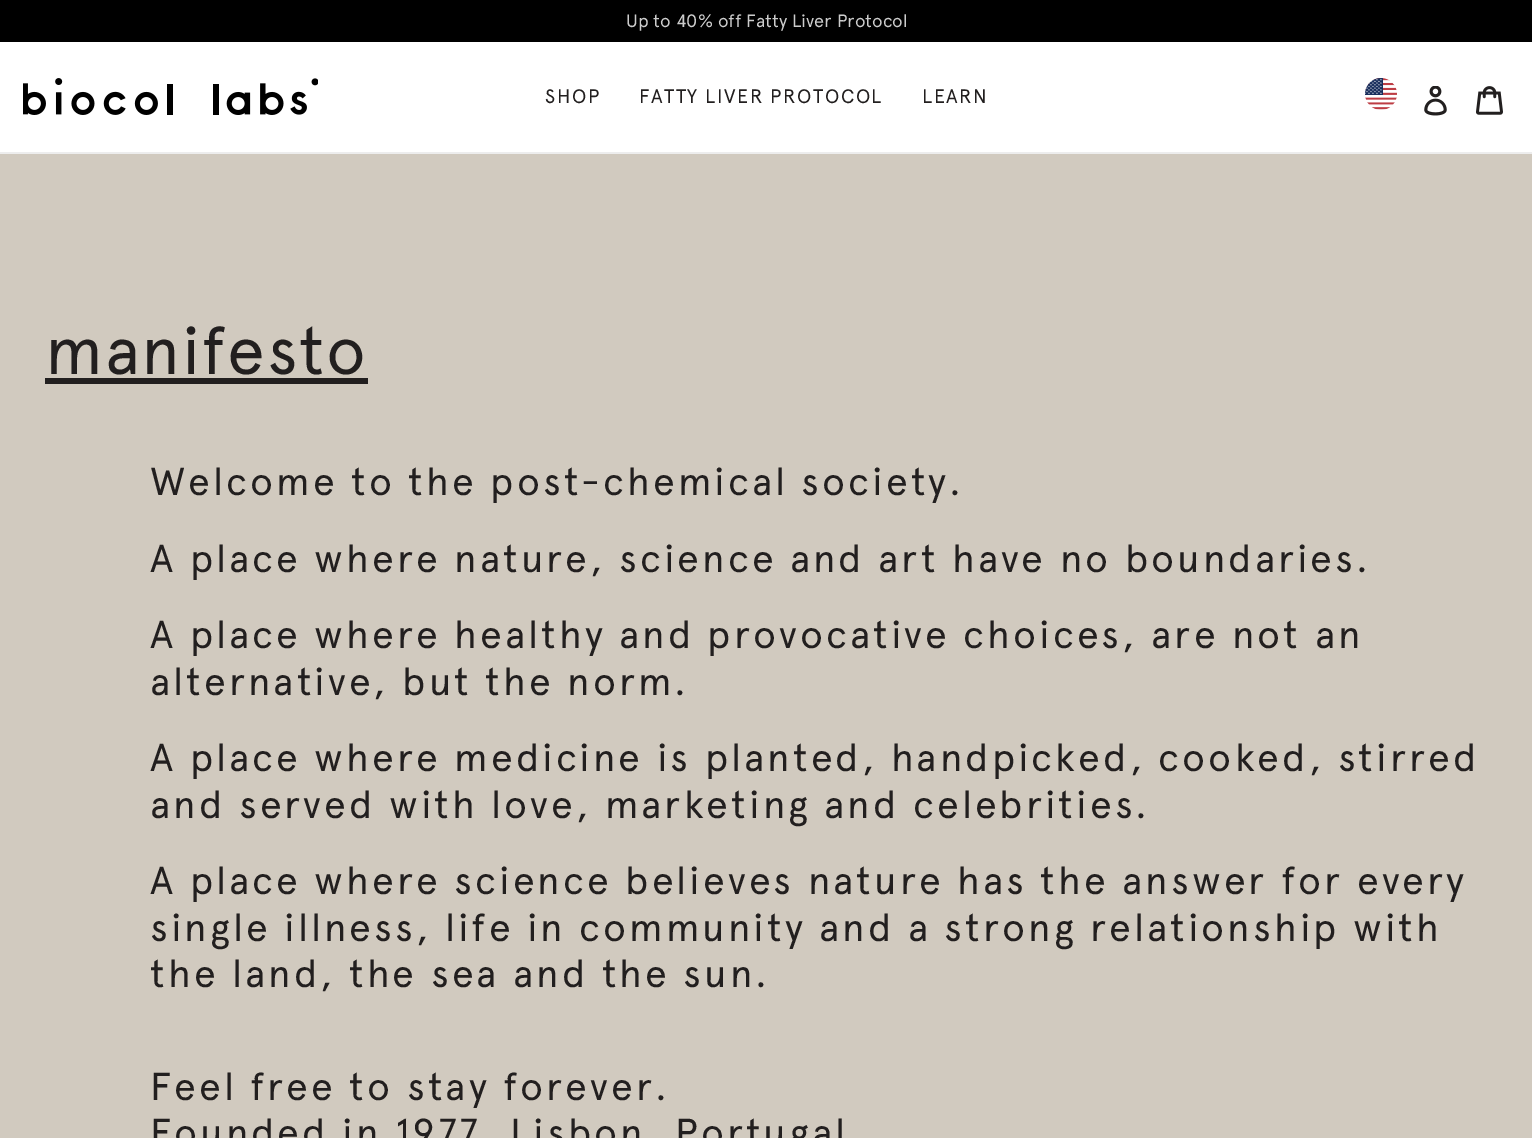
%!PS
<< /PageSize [1532 1138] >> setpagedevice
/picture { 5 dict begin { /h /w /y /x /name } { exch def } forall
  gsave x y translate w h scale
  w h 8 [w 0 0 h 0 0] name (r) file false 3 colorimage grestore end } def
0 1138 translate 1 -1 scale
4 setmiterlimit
1 setgray
0 0 1532 1138 rectfill
0.929 setgray
0 152 1532 2 rectfill
0 setgray
0 0 1532 42 rectfill
/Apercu-Regular [18 0 0 -18 0 0] selectfont
0.8 setgray
626 27 moveto (Up to 40% off Fatty Liver Protocol) show
(img1.rgb) 23 78 295 37 picture
/Apercu-Regular [19.5 0 0 -19.5 0 0] selectfont
0.133 0.122 0.122 setrgbcolor
545 103 moveto 1.5 0 (SHOP) ashow
639 103 moveto 1.5 0 (FATTY LIVER PROTOCOL) ashow
922 103 moveto 1.5 0 (LEARN) ashow
(img2.rgb) 1365 78 32 32 picture
(img3.rgb) 1424 86 23 30 picture
(img4.rgb) 1476 86 27 29 picture
0.82 0.792 0.749 setrgbcolor
0 154 1532 984 rectfill
/Apercu-Regular [67.5 0 0 -67.5 0 0] selectfont
0.133 0.122 0.122 setrgbcolor
45 374 moveto 1.5 0 (manifesto) ashow
45 378 323 6 rectfill
/Apercu-Regular [39 0 0 -39 0 0] selectfont
150 495 moveto 3 0 (Welcome to the post-chemical society.) ashow
150 572 moveto 3 0 (A place where nature, science and art have no boundaries.) ashow
150 648 moveto 3 0 (A place where healthy and provocative choices, are not an) ashow
150 695 moveto 3 0 (alternative, but the norm.) ashow
150 771 moveto 3 0 (A place where medicine is planted, handpicked, cooked, stirred) ashow
150 818 moveto 3 0 (and served with love, marketing and celebrities.) ashow
150 894 moveto 3 0 (A place where science believes nature has the answer for every) ashow
150 941 moveto 3 0 (single illness, life in community and a strong relationship with) ashow
150 987 moveto 3 0 (the land, the sea and the sun.) ashow
150 1100 moveto 3 0 (Feel free to stay forever.) ashow
150 1146 moveto 3 0 (Founded in 1977, Lisbon, Portugal) ashow
showpage
